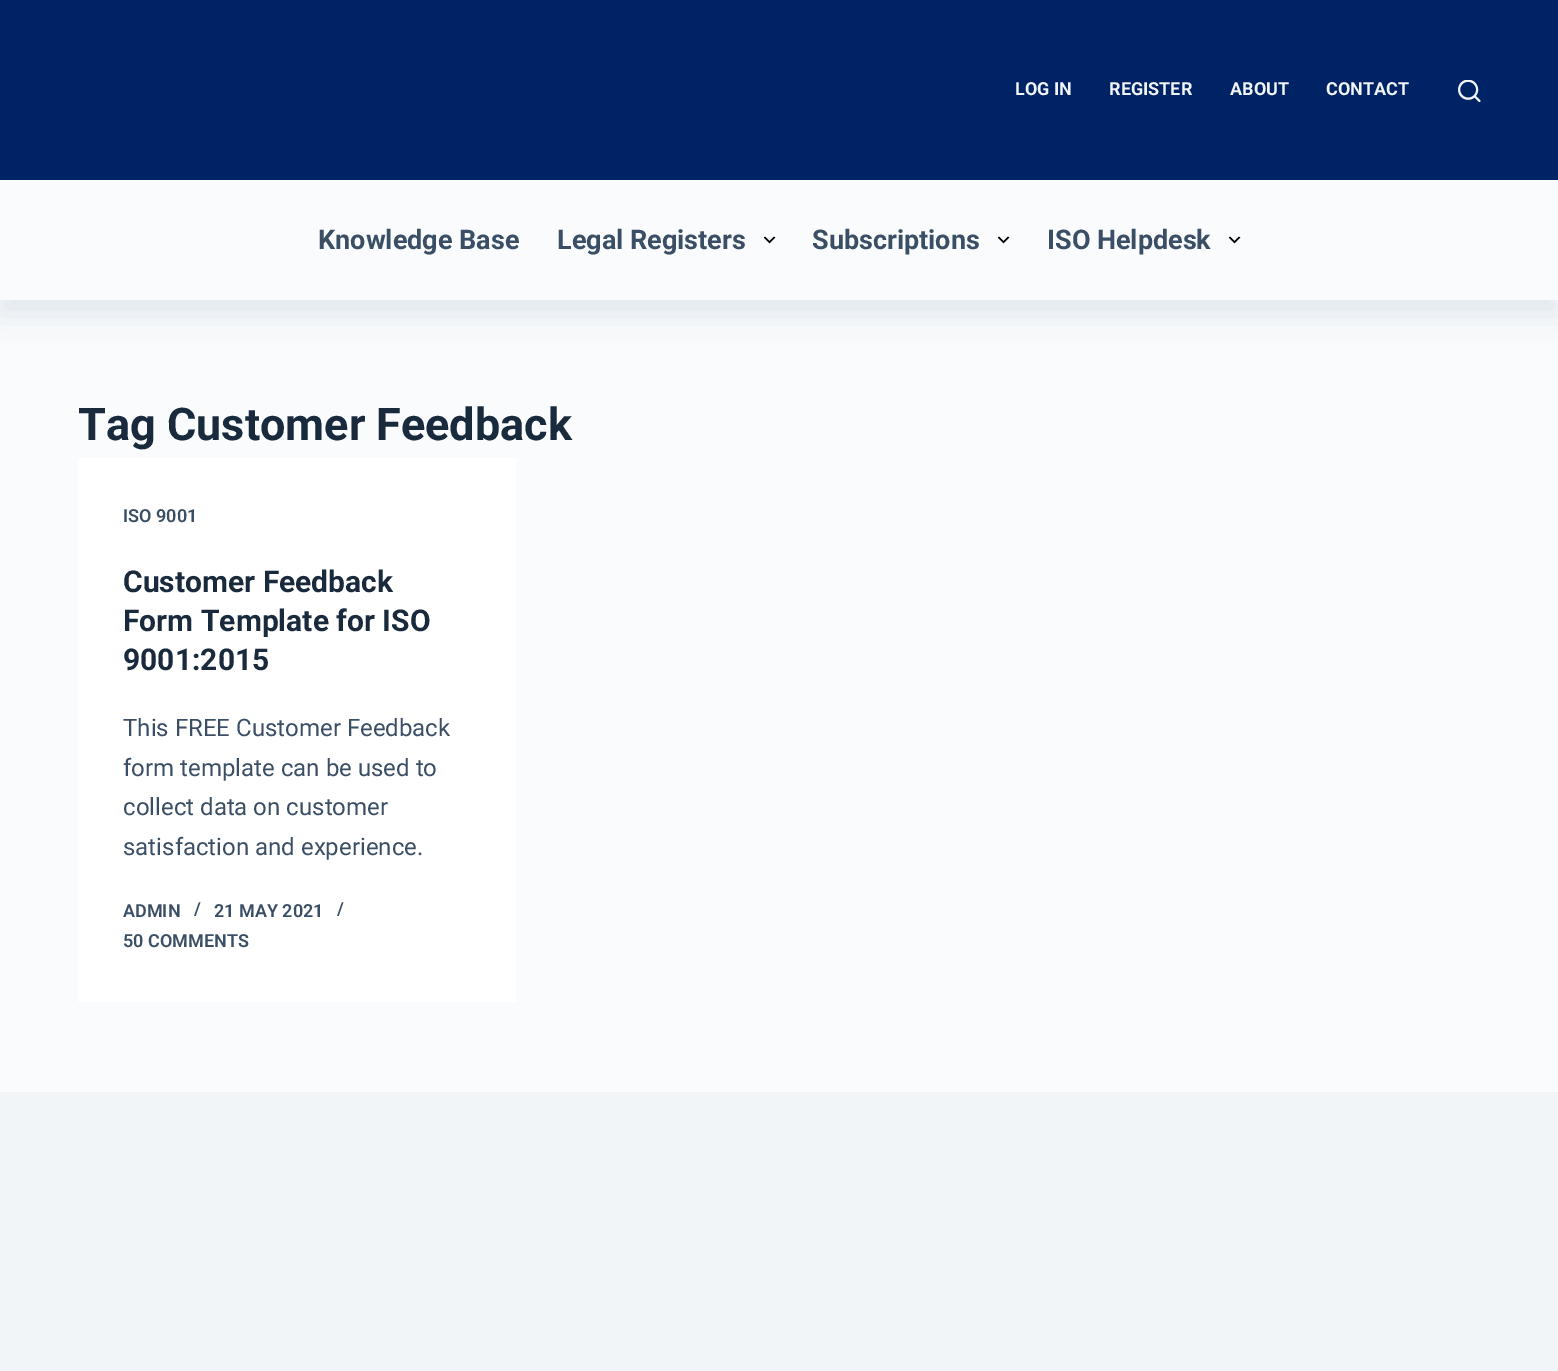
%!PS
<< /PageSize [1558 1371] /PageUsesTransparency true >> setpagedevice
/alpha { dup .setfillconstantalpha .setstrokeconstantalpha } def
/roundrect { 5 dict begin { /r /h /w /y /x } { exch def } forall
  x r add y moveto x w add y 2 copy h add r arct x w add y h add x 1 index r arct
  x y h add x y r arct x y 2 copy exch w add exch r arct closepath end } def
/shadow { 12 dict begin { /a /b /q /h /w /y /x } { exch def } forall gsave /was 0 def
  9 -2 -9 { dup b mul 4 div /e exch def 1 sub .425 mul 2.718 exch exp 1 add a .99 .min exch div /now exch def
    1 1 now sub 1 was sub div sub alpha /was now def
    w h .min e 2 mul add 0 gt { x e sub y e sub w e 2 mul add h e 2 mul add
      q e add b .6 mul add w h .min 2 div e add .min 0 .max roundrect fill } if } for grestore end } def
/picture { 5 dict begin { /h /w /y /x /name } { exch def } forall
  gsave x y translate w h scale
  w h 8 [w 0 0 h 0 0] name (r) file false 3 colorimage grestore end } def
0 .pushpdf14devicefilter
0 1371 translate 1 -1 scale
4 setmiterlimit
0.98 0.984 0.988 setrgbcolor
0 0 1558 1371 rectfill
gsave
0 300 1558 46 rectclip
0.882 0.91 0.929 setrgbcolor
0 195 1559 120 0 15 1 shadow
grestore
0 0.137 0.4 setrgbcolor
0 0 1558 180 rectfill
/Roboto-Bold [18 0 0 -18 0 0] selectfont
0.949 0.961 0.969 setrgbcolor
1015 95 moveto (LOG IN) show
1109 95 moveto (REGISTER) show
1230 95 moveto (ABOUT) show
1326 95 moveto (CONTACT) show
(img1.rgb) 1458 80 23 22 picture
/Roboto-Bold [27 0 0 -27 0 0] selectfont
0.227 0.31 0.4 setrgbcolor
318 249 moveto (Knowledge Base) show
557 249 moveto (Legal Registers) show
(img2.rgb) 764 236 12 8 picture
812 249 moveto (Subscriptions) show
(img2.rgb) 998 236 12 8 picture
1047 249 moveto (ISO Helpdesk) show
(img2.rgb) 1229 236 12 8 picture
/Roboto-Bold [45 0 0 -45 0 0] selectfont
0.098 0.165 0.239 setrgbcolor
78 440 moveto (Tag Customer Feedback) show
1 setgray
78 458 438 544 rectfill
/Roboto-SemiBold [18 0 0 -18 0 0] selectfont
0.227 0.31 0.4 setrgbcolor
123 522 moveto (ISO 9001) show
/Roboto-Bold [30 0 0 -30 0 0] selectfont
0.098 0.165 0.239 setrgbcolor
123 592 moveto (Customer Feedback) show
123 631 moveto (Form Template for ISO) show
123 670 moveto (9001:2015) show
/Roboto-Regular [24 0 0 -24 0 0] selectfont
0.227 0.31 0.4 setrgbcolor
123 736 moveto (This FREE Customer Feedback) show
123 776 moveto (form template can be used to) show
123 815 moveto (collect data on customer) show
123 855 moveto (satisfaction and experience.) show
/Roboto-SemiBold [18 0 0 -18 0 0] selectfont
123 917 moveto (ADMIN) show
194 915 moveto (/) show
214 917 moveto (21 MAY 2021) show
337 915 moveto (/) show
123 947 moveto (50 COMMENTS) show
0.949 0.961 0.969 setrgbcolor
0 1092 1558 279 rectfill
.poppdf14devicefilter showpage
